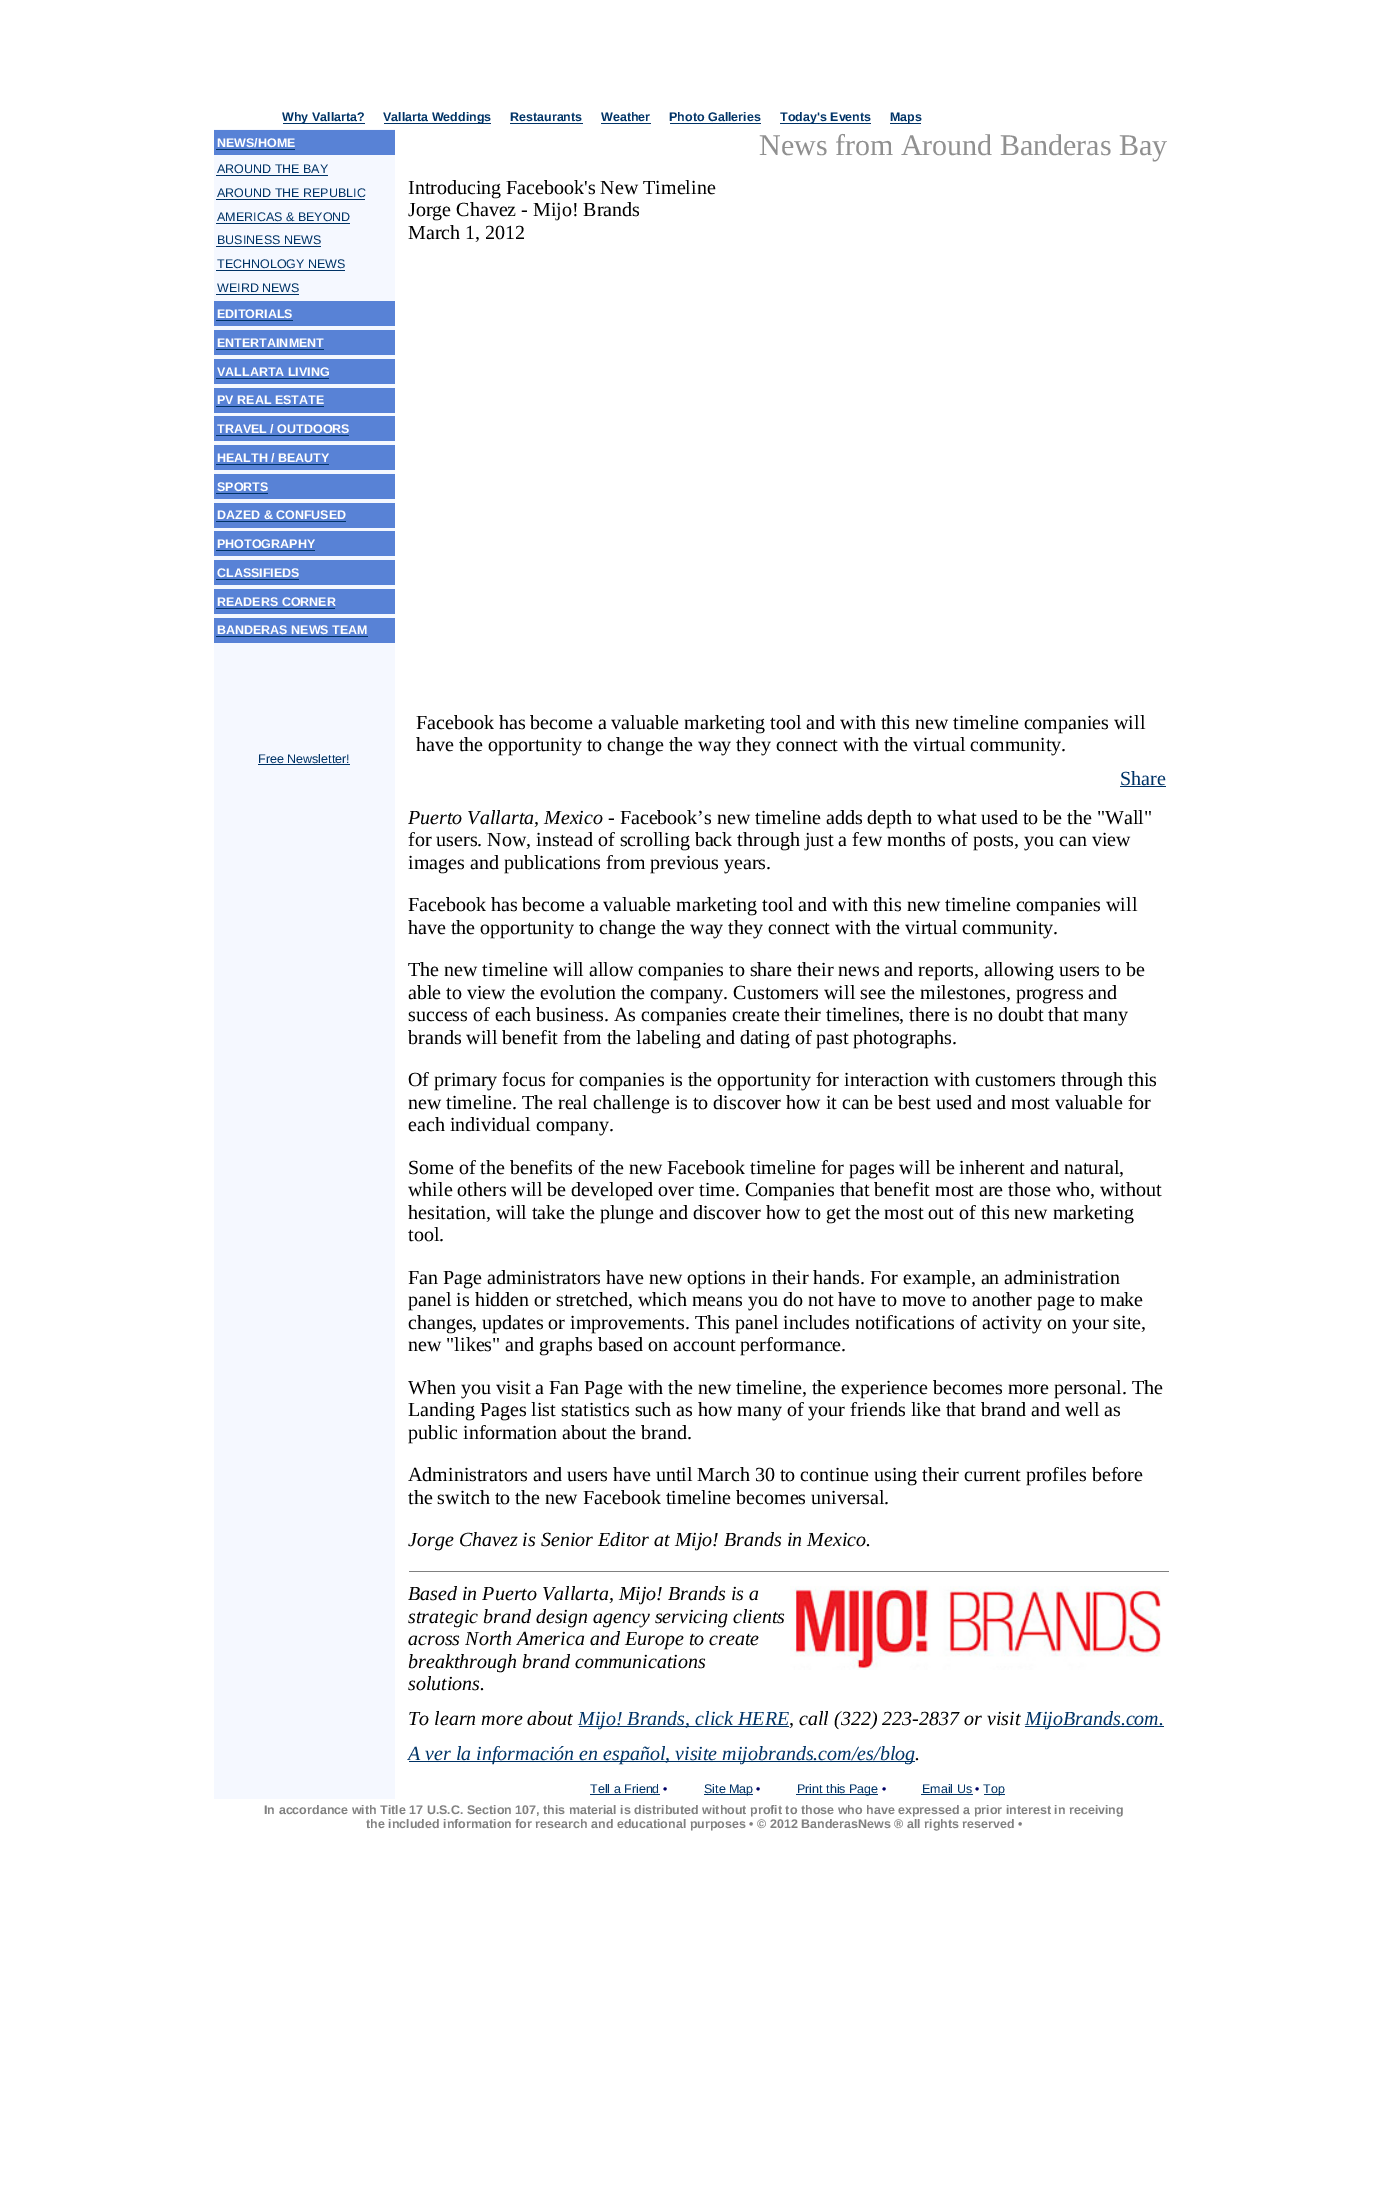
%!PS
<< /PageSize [1388 2193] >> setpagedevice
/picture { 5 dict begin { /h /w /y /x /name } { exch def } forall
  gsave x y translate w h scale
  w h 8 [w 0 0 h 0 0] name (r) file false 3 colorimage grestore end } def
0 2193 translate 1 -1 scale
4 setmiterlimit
1 setgray
0 0 1388 2193 rectfill
0 0.2 0.4 setrgbcolor
283 123 82 1 rectfill
/LiberationSans-Bold [12.5 0 0 -12.5 0 0] selectfont
282 121 moveto (Why Vallarta?) show
384 123 107 1 rectfill
383 121 moveto (Vallarta Weddings) show
510 121 moveto (Restaurants) show
510 123 73 1 rectfill
601 121 moveto (Weather) show
601 123 50 1 rectfill
669 121 moveto (Photo Galleries) show
670 123 91 1 rectfill
780 123 91 1 rectfill
780 121 moveto (Today's Events) show
890 123 31 1 rectfill
890 121 moveto (Maps) show
0.961 0.973 1 setrgbcolor
214 129 181 1670 rectfill
0.345 0.51 0.839 setrgbcolor
214 130 181 25 rectfill
1 setgray
217 147 moveto (NEWS/HOME) show
0 0.2 0.4 setrgbcolor
216 149 79 1 rectfill
/LiberationSans-Regular [12.5 0 0 -12.5 0 0] selectfont
217 173 moveto (AROUND THE BAY) show
216 175 112 1 rectfill
217 197 moveto (AROUND THE REPUBLIC) show
216 199 149 1 rectfill
217 221 moveto (AMERICAS & BEYOND) show
216 223 134 1 rectfill
217 244 moveto (BUSINESS NEWS) show
216 246 105 1 rectfill
217 268 moveto (TECHNOLOGY NEWS) show
216 270 129 1 rectfill
217 292 moveto (WEIRD NEWS) show
216 294 83 1 rectfill
0.345 0.51 0.839 setrgbcolor
214 301 181 25 rectfill
/LiberationSans-Bold [12.5 0 0 -12.5 0 0] selectfont
1 setgray
217 318 moveto (EDITORIALS) show
0 0.2 0.4 setrgbcolor
216 320 77 1 rectfill
0.345 0.51 0.839 setrgbcolor
214 330 181 25 rectfill
1 setgray
217 347 moveto (ENTERTAINMENT) show
0 0.2 0.4 setrgbcolor
216 349 108 1 rectfill
0.345 0.51 0.839 setrgbcolor
214 359 181 25 rectfill
1 setgray
217 376 moveto (VALLARTA LIVING) show
0 0.2 0.4 setrgbcolor
216 378 113 1 rectfill
0.345 0.51 0.839 setrgbcolor
214 388 181 25 rectfill
1 setgray
217 404 moveto (PV REAL ESTATE) show
0 0.2 0.4 setrgbcolor
216 406 108 1 rectfill
0.345 0.51 0.839 setrgbcolor
214 416 181 25 rectfill
1 setgray
217 433 moveto (TRAVEL / OUTDOORS) show
0 0.2 0.4 setrgbcolor
216 435 133 1 rectfill
0.345 0.51 0.839 setrgbcolor
214 445 181 25 rectfill
1 setgray
217 462 moveto (HEALTH / BEAUTY) show
0 0.2 0.4 setrgbcolor
216 464 113 1 rectfill
0.345 0.51 0.839 setrgbcolor
214 474 181 25 rectfill
1 setgray
217 491 moveto (SPORTS) show
0 0.2 0.4 setrgbcolor
216 493 52 1 rectfill
0.345 0.51 0.839 setrgbcolor
214 503 181 25 rectfill
1 setgray
217 519 moveto (DAZED & CONFUSED) show
0 0.2 0.4 setrgbcolor
216 521 130 1 rectfill
0.345 0.51 0.839 setrgbcolor
214 531 181 25 rectfill
1 setgray
217 548 moveto (PHOTOGRAPHY) show
0 0.2 0.4 setrgbcolor
216 550 99 1 rectfill
0.345 0.51 0.839 setrgbcolor
214 560 181 25 rectfill
1 setgray
217 577 moveto (CLASSIFIEDS) show
0 0.2 0.4 setrgbcolor
216 579 83 1 rectfill
0.345 0.51 0.839 setrgbcolor
214 589 181 25 rectfill
1 setgray
217 606 moveto (READERS CORNER) show
0 0.2 0.4 setrgbcolor
216 608 119 1 rectfill
0.345 0.51 0.839 setrgbcolor
214 618 181 25 rectfill
1 setgray
217 634 moveto (BANDERAS NEWS TEAM) show
0 0.2 0.4 setrgbcolor
216 636 152 1 rectfill
/LiberationSans-Regular [12.5 0 0 -12.5 0 0] selectfont
258 763 moveto (Free Newsletter!) show
258 764 92 1 rectfill
/LiberationSerif-Regular [30 0 0 -30 0 0] selectfont
0.565 setgray
759 155 moveto (News from Around Banderas Bay) show
/LiberationSerif-Regular [20 0 0 -20 0 0] selectfont
0 setgray
408 194 moveto (Introducing Facebook's New Timeline) show
408 216 moveto (Jorge Chavez - Mijo! Brands) show
408 239 moveto (March 1, 2012) show
416 729 moveto (Facebook has become a valuable marketing tool and with this new timeline companies will) show
416 751 moveto (have the opportunity to change the way they connect with the virtual community.) show
0 0.2 0.4 setrgbcolor
1120 785 moveto (Share) show
1120 786 46 1 rectfill
/LiberationSerif-Italic [20 0 0 -20 0 0] selectfont
0 setgray
408 824 moveto (Puerto Vallarta, Mexico) show
/LiberationSerif-Regular [20 0 0 -20 0 0] selectfont
608 824 moveto (- Facebook’s new timeline adds depth to what used to be the "Wall") show
408 846 moveto (for users. Now, instead of scrolling back through just a few months of posts, you can view) show
408 869 moveto (images and publications from previous years.) show
408 911 moveto (Facebook has become a valuable marketing tool and with this new timeline companies will) show
408 934 moveto (have the opportunity to change the way they connect with the virtual community.) show
408 976 moveto (The new timeline will allow companies to share their news and reports, allowing users to be) show
408 999 moveto (able to view the evolution the company. Customers will see the milestones, progress and) show
408 1021 moveto (success of each business. As companies create their timelines, there is no doubt that many) show
408 1044 moveto (brands will benefit from the labeling and dating of past photographs.) show
408 1086 moveto (Of primary focus for companies is the opportunity for interaction with customers through this) show
408 1109 moveto (new timeline. The real challenge is to discover how it can be best used and most valuable for) show
408 1131 moveto (each individual company.) show
408 1174 moveto (Some of the benefits of the new Facebook timeline for pages will be inherent and natural,) show
408 1196 moveto (while others will be developed over time. Companies that benefit most are those who, without) show
408 1219 moveto (hesitation, will take the plunge and discover how to get the most out of this new marketing) show
408 1241 moveto (tool.) show
408 1284 moveto (Fan Page administrators have new options in their hands. For example, an administration) show
408 1306 moveto (panel is hidden or stretched, which means you do not have to move to another page to make) show
408 1329 moveto (changes, updates or improvements. This panel includes notifications of activity on your site,) show
408 1351 moveto (new "likes" and graphs based on account performance.) show
408 1394 moveto (When you visit a Fan Page with the new timeline, the experience becomes more personal. The) show
408 1416 moveto (Landing Pages list statistics such as how many of your friends like that brand and well as) show
408 1439 moveto (public information about the brand.) show
408 1481 moveto (Administrators and users have until March 30 to continue using their current profiles before) show
408 1504 moveto (the switch to the new Facebook timeline becomes universal.) show
/LiberationSerif-Italic [20 0 0 -20 0 0] selectfont
408 1546 moveto (Jorge Chavez is Senior Editor at Mijo! Brands in Mexico.) show
0.502 setgray
409 1571 760 1 rectfill
0 setgray
408 1600 moveto (Based in Puerto Vallarta, Mijo! Brands is a) show
(img1.rgb) 790 1586 371 84 picture
408 1623 moveto (strategic brand design agency servicing clients) show
408 1645 moveto (across North America and Europe to create) show
408 1668 moveto (breakthrough brand communications) show
408 1690 moveto (solutions.) show
408 1725 moveto (To learn more about) show
0 0.2 0.4 setrgbcolor
579 1726 210 1 rectfill
578 1725 moveto (Mijo! Brands, click HERE) show
0 setgray
789 1725 moveto (, call \(322\) 223-2837 or visit) show
0 0.2 0.4 setrgbcolor
1025 1726 139 1 rectfill
1025 1725 moveto (MijoBrands.com.) show
409 1761 506 1 rectfill
408 1760 moveto (A ver la información en español, visite mijobrands.com/es/blog) show
0 setgray
915 1760 moveto (.) show
/LiberationSans-Regular [12.5 0 0 -12.5 0 0] selectfont
0 0.2 0.4 setrgbcolor
590 1793 moveto (Tell a Friend) show
590 1794 70 1 rectfill
0 0 0.4 setrgbcolor
663 1793 moveto (•) show
0 0.2 0.4 setrgbcolor
704 1794 49 1 rectfill
704 1793 moveto (Site Map) show
0 0 0.4 setrgbcolor
756 1793 moveto (•) show
0 0.2 0.4 setrgbcolor
796 1794 82 1 rectfill
797 1793 moveto (Print this Page) show
0 0 0.4 setrgbcolor
882 1793 moveto (•) show
0 0.2 0.4 setrgbcolor
922 1793 moveto (Email Us) show
921 1794 52 1 rectfill
0 0 0.4 setrgbcolor
975 1793 moveto (•) show
0 0.2 0.4 setrgbcolor
984 1794 21 1 rectfill
983 1793 moveto (Top) show
/LiberationSans-Bold [12.5 0 0 -12.5 0 0] selectfont
0.502 setgray
264 1814 moveto (In accordance with Title 17 U.S.C. Section 107, this material is distributed without profit to those who have expressed a prior interest in receiving) show
366 1828 moveto (the included information for research and educational purposes • © 2012 BanderasNews ® all rights reserved •) show
showpage
